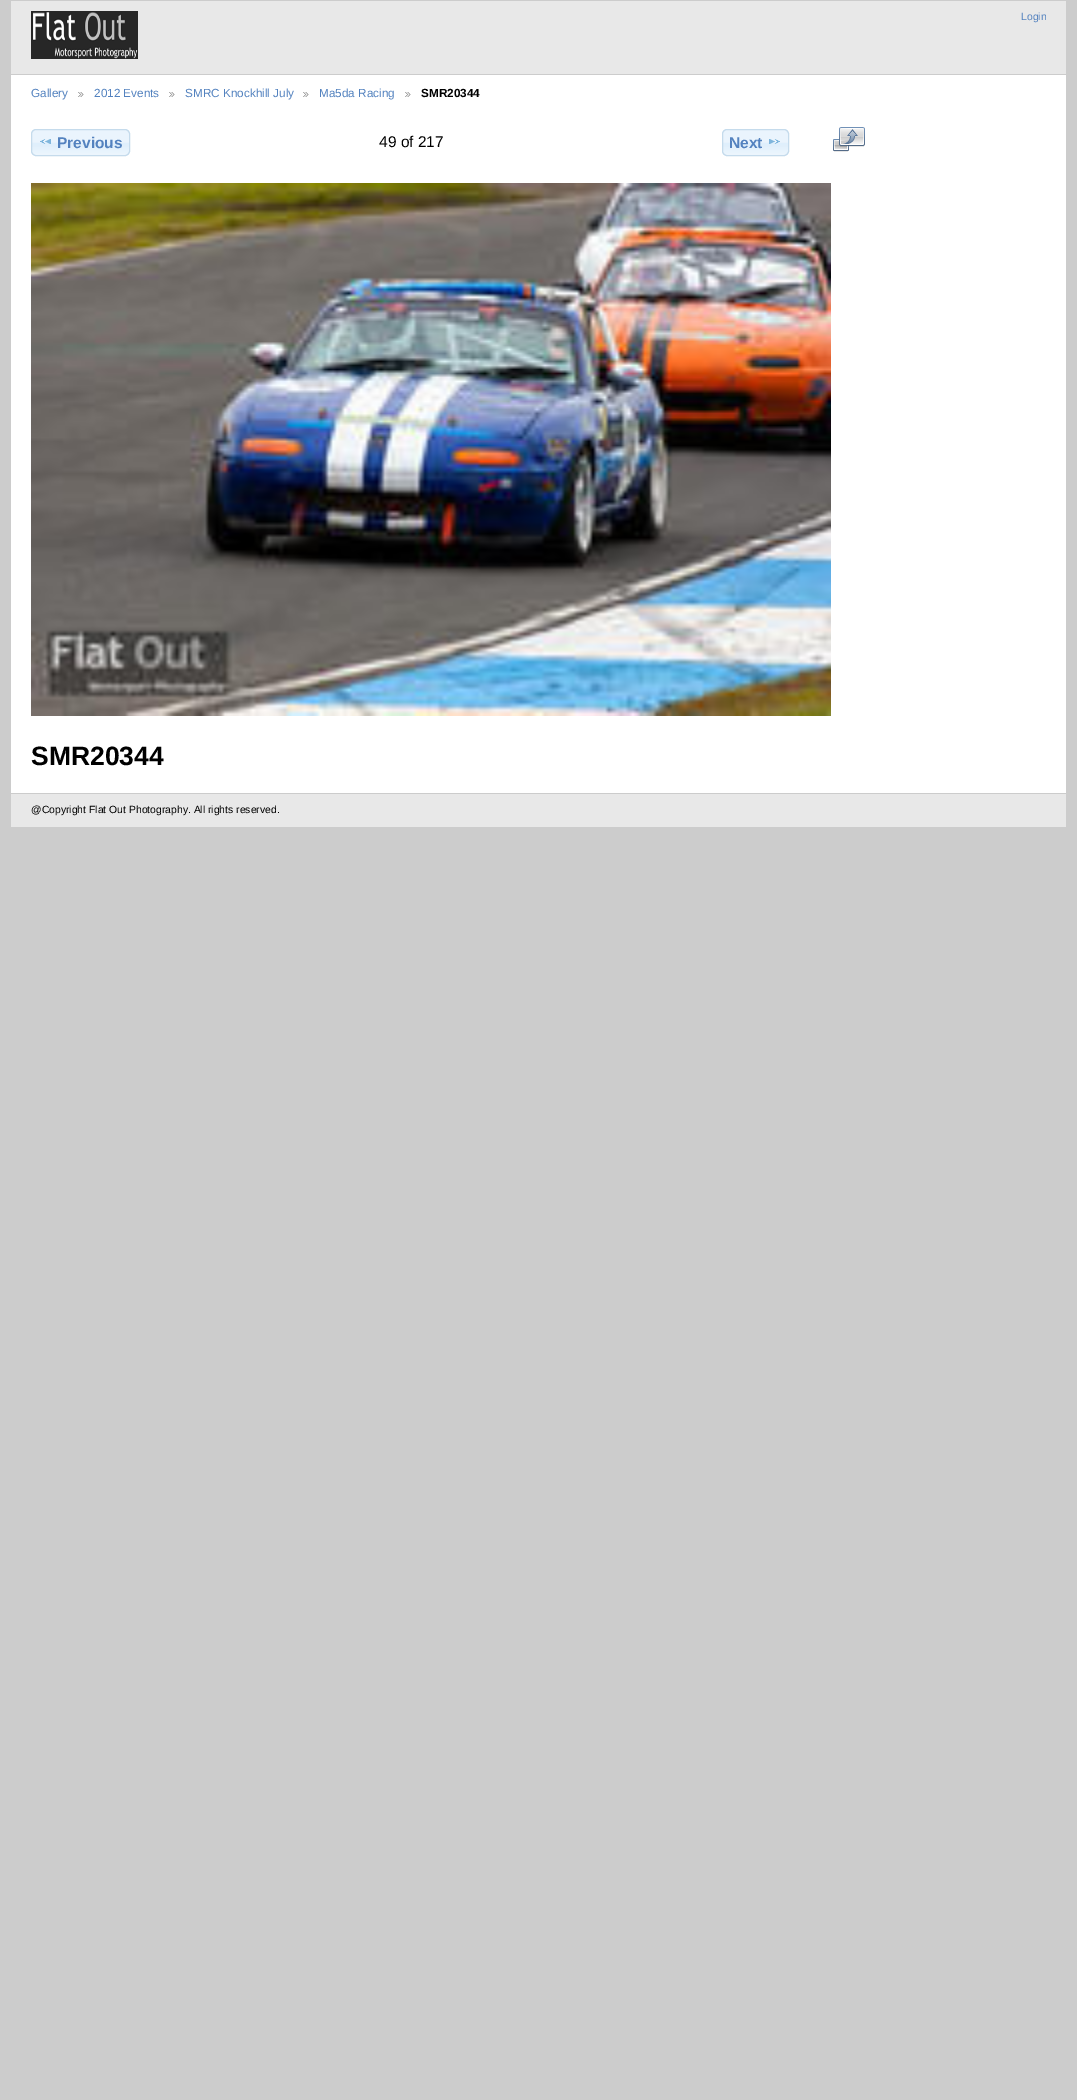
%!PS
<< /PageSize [1077 2100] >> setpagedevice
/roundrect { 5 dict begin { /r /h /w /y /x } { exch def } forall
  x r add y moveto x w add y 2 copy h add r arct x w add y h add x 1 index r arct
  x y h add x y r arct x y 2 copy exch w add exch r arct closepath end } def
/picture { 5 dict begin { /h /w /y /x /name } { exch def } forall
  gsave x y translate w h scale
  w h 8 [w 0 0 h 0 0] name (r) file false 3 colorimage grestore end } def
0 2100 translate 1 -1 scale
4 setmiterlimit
0.8 setgray
0 0 1077 2100 rectfill
1 setgray
11 75 1055 718 rectfill
0.91 setgray
11 1 1055 73 rectfill
(img1.rgb) 31 11 107 48 picture
/LiberationSans-Regular [10.4 0 0 -10.4 0 0] selectfont
0.325 0.51 0.749 setrgbcolor
1021 20 moveto (Login) show
/LiberationSans-Regular [11.75 0 0 -11.75 0 0] selectfont
31 97 moveto (Gallery) show
(img2.rgb) 78 92 6 5 picture
94 97 moveto (2012 Events) show
(img2.rgb) 169 92 6 5 picture
185 97 moveto (SMRC Knockhill July) show
(img2.rgb) 303 92 6 5 picture
319 97 moveto (Ma5da Racing) show
(img2.rgb) 405 92 6 5 picture
/LiberationSans-Bold [11.75 0 0 -11.75 0 0] selectfont
0 setgray
421 97 moveto (SMR20344) show
(img3.rgb) 31 129 99 27 picture
0.773 0.859 0.925 setrgbcolor
31.5 129.5 98 26 4.5 roundrect stroke
(img4.rgb) 40 139 11 5 picture
/LiberationSans-Bold [15.5 0 0 -15.5 0 0] selectfont
0.325 0.51 0.749 setrgbcolor
57 148 moveto (Previous) show
/LiberationSans-Regular [15.5 0 0 -15.5 0 0] selectfont
0 setgray
379 147 moveto (49 of 217) show
(img5.rgb) 722 129 67 27 picture
0.773 0.859 0.925 setrgbcolor
722.5 129.5 66 26 4.5 roundrect stroke
/LiberationSans-Bold [15.5 0 0 -15.5 0 0] selectfont
0.325 0.51 0.749 setrgbcolor
729 148 moveto (Next) show
(img6.rgb) 769 139 11 5 picture
(img7.rgb) 31 183 800 533 picture
/LiberationSans-Bold [26.5 0 0 -26.5 0 0] selectfont
0 setgray
31 765 moveto (SMR20344) show
(img8.rgb) 833 127 32 25 picture
0.91 setgray
11 794 1055 33 rectfill
/LiberationSans-Regular [10.4 0 0 -10.4 0 0] selectfont
0 setgray
31 813 moveto (@Copyright Flat Out Photography. All rights reserved.) show
showpage
